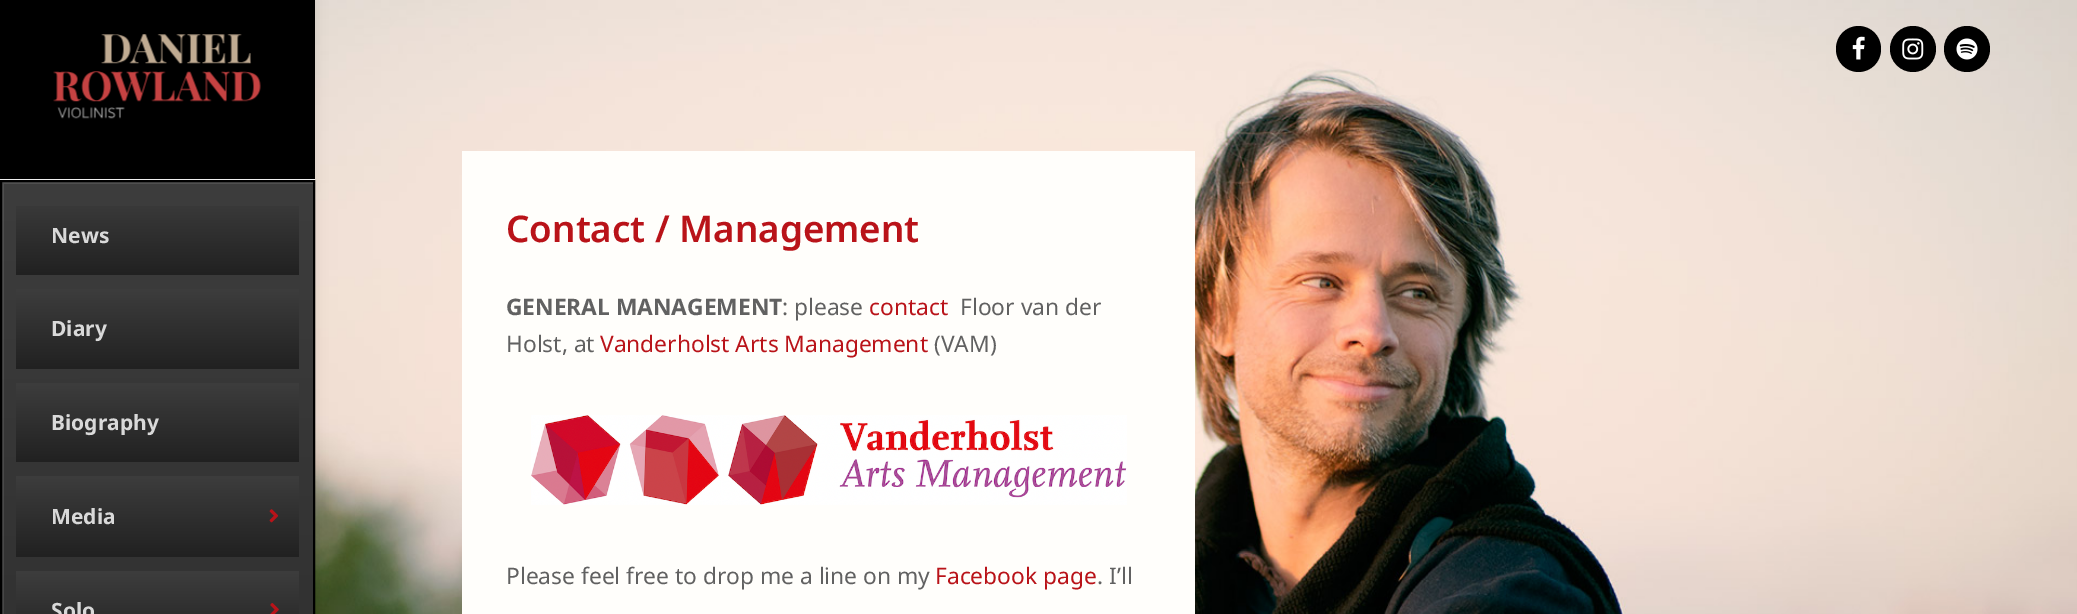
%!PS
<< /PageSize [2077 614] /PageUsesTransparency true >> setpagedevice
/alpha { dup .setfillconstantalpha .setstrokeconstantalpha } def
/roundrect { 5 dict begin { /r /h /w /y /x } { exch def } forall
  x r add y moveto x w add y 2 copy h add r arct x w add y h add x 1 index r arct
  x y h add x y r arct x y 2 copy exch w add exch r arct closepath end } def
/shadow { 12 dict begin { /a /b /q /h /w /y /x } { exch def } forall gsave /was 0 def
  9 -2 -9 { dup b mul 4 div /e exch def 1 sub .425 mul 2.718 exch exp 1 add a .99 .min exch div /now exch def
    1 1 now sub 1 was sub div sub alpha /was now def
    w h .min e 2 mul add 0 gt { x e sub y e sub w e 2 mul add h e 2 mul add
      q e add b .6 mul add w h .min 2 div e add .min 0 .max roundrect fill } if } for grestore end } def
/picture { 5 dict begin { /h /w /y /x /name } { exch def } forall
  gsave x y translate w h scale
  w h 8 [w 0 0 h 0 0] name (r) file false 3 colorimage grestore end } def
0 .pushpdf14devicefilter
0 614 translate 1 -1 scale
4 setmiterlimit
1 setgray
0 0 2077 614 rectfill
(img1.rgb) 315 0 1762 614 picture
0 setgray
1836 26 45 46 22.5 roundrect fill
(img2.rgb) 1852 36 13 24 picture
newpath 1913 49 23 0 360 arc closepath fill
(img3.rgb) 1902 38 22 22 picture
newpath 1967 49 23 0 360 arc closepath fill
(img4.rgb) 1956 38 22 22 picture
0 0 315 614 0 6 0.1 shadow
0 0 315 179 rectfill
(img5.rgb) 53 34 208 85 picture
0.933 setgray
0 179 315 1 rectfill
gsave newpath 2 182 moveto 313 182 lineto 313 614 lineto 2 614 lineto closepath clip newpath
<< /ShadingType 2 /ColorSpace /DeviceRGB /Coords [157 182 158 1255] /Extend [true true] /Function << /FunctionType 2 /Domain [0 1] /C0 [0.239 0.239 0.239] /C1 [0.129 0.129 0.129] /N 1 >> >> shfill grestore
gsave
2 182 311 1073 rectclip
0.1 alpha
1 setgray
newpath -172 9 moveto 486 9 lineto 486 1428 lineto -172 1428 lineto closepath 4 184 moveto 315 184 lineto 315 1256 lineto 4 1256 lineto closepath eofill
grestore
0 setgray
2 setlinewidth
1 181 313 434 rectstroke
gsave newpath 16 206 moveto 299 206 lineto 299 275 lineto 16 275 lineto closepath clip newpath
<< /ShadingType 2 /ColorSpace /DeviceRGB /Coords [158 196 158 275] /Extend [true true] /Function << /FunctionType 2 /Domain [0 1] /C0 [0.239 0.239 0.239] /C1 [0.129 0.129 0.129] /N 1 >> >> shfill grestore
/NotoSans-Bold [21 0 0 -21 0 0] selectfont
0.851 setgray
51 243 moveto (News) show
gsave newpath 16 289 moveto 299 289 lineto 299 369 lineto 16 369 lineto closepath clip newpath
<< /ShadingType 2 /ColorSpace /DeviceRGB /Coords [158 289 158 369] /Extend [true true] /Function << /FunctionType 2 /Domain [0 1] /C0 [0.239 0.239 0.239] /C1 [0.129 0.129 0.129] /N 1 >> >> shfill grestore
51 336 moveto (Diary) show
gsave newpath 16 383 moveto 299 383 lineto 299 462 lineto 16 462 lineto closepath clip newpath
<< /ShadingType 2 /ColorSpace /DeviceRGB /Coords [158 383 158 462] /Extend [true true] /Function << /FunctionType 2 /Domain [0 1] /C0 [0.239 0.239 0.239] /C1 [0.129 0.129 0.129] /N 1 >> >> shfill grestore
51 430 moveto (Biography) show
gsave newpath 16 476 moveto 299 476 lineto 299 557 lineto 16 557 lineto closepath clip newpath
<< /ShadingType 2 /ColorSpace /DeviceRGB /Coords [158 476 158 557] /Extend [true true] /Function << /FunctionType 2 /Domain [0 1] /C0 [0.239 0.239 0.239] /C1 [0.129 0.129 0.129] /N 1 >> >> shfill grestore
51 524 moveto (Media) show
(img6.rgb) 269 509 10 14 picture
gsave newpath 16 571 moveto 299 571 lineto 299 614 lineto 16 614 lineto closepath clip newpath
<< /ShadingType 2 /ColorSpace /DeviceRGB /Coords [158 571 158 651] /Extend [true true] /Function << /FunctionType 2 /Domain [0 1] /C0 [0.239 0.239 0.239] /C1 [0.129 0.129 0.129] /N 1 >> >> shfill grestore
51 618 moveto (Solo) show
(img7.rgb) 270 603 9 11 picture
1 0.996 0.984 setrgbcolor
462 151 733 463 rectfill
/NotoSans-SemiBold [36.75 0 0 -36.75 0 0] selectfont
0.725 0.075 0.098 setrgbcolor
506 242 moveto (Contact / Management) show
/NotoSans-Bold [22.75 0 0 -22.75 0 0] selectfont
0.38 setgray
506 315 moveto (GENERAL MANAGEMENT) show
/NotoSans-Regular [22.75 0 0 -22.75 0 0] selectfont
782 315 moveto (: please) show
0.725 0.075 0.098 setrgbcolor
869 315 moveto (contact) show
0.38 setgray
960 315 moveto (Floor van der) show
506 352 moveto (Holst, at) show
0.725 0.075 0.098 setrgbcolor
600 352 moveto (Vanderholst Arts Management) show
0.38 setgray
934 352 moveto (\(VAM\)) show
(img8.rgb) 531 415 596 90 picture
506 584 moveto (Please feel free to drop me a line on my) show
0.725 0.075 0.098 setrgbcolor
935 584 moveto (Facebook page) show
0.38 setgray
1097 584 moveto (. I’ll) show
.poppdf14devicefilter showpage
